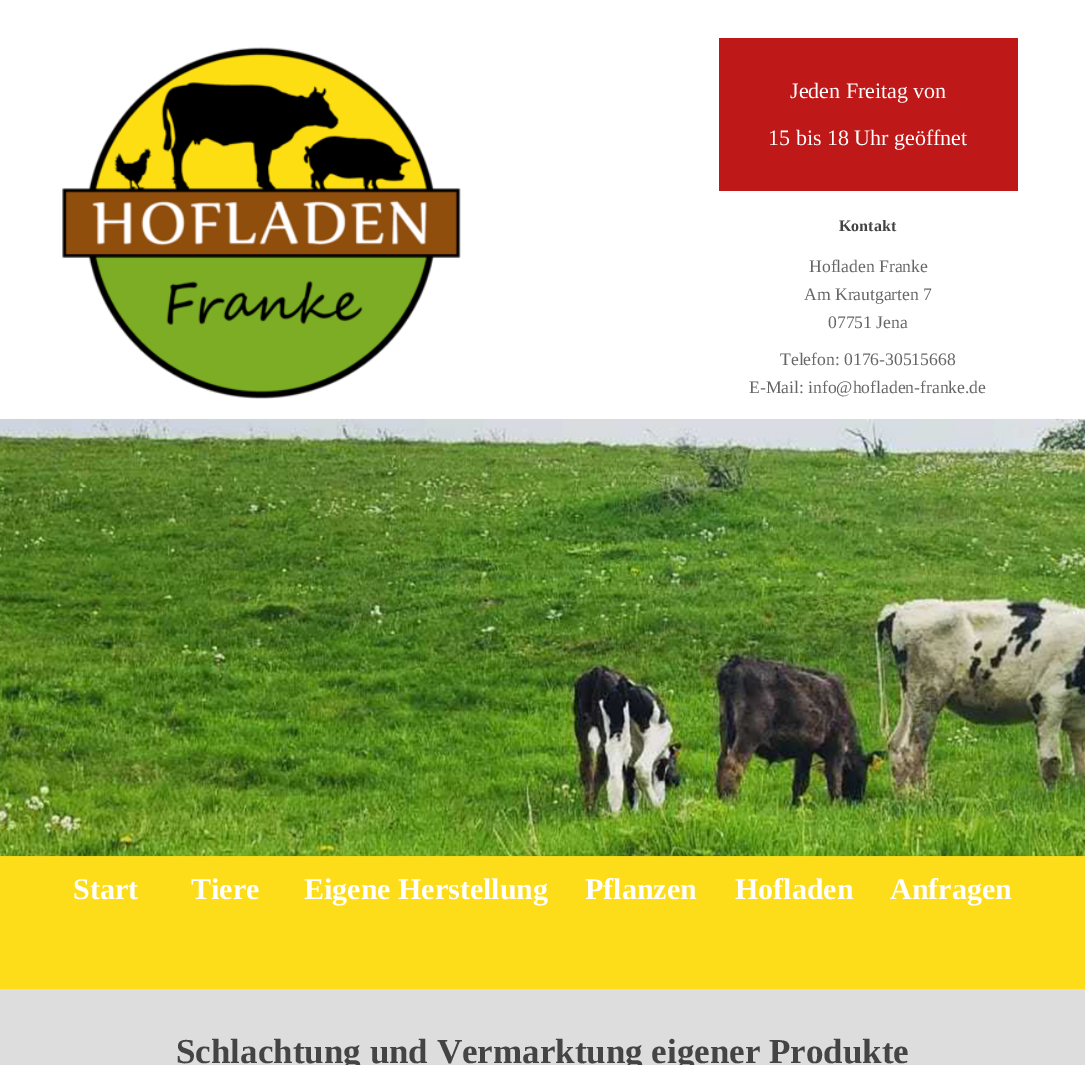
%!PS
<< /PageSize [1085 1065] >> setpagedevice
/picture { 5 dict begin { /h /w /y /x /name } { exch def } forall
  gsave x y translate w h scale
  w h 8 [w 0 0 h 0 0] name (r) file false 3 colorimage grestore end } def
0 1065 translate 1 -1 scale
4 setmiterlimit
0.867 setgray
0 0 1085 1065 rectfill
1 setgray
0 0 1085 419 rectfill
(img1.rgb) 62 47 399 352 picture
0.749 0.094 0.094 setrgbcolor
719 38 299 153 rectfill
/LiberationSerif-Regular [22 0 0 -22 0 0] selectfont
1 setgray
790 98 moveto (Jeden Freitag von) show
768 145 moveto (15 bis 18 Uhr geöffnet) show
/LiberationSerif-Bold [16 0 0 -16 0 0] selectfont
0.267 setgray
839 231 moveto (Kontakt) show
/LiberationSerif-Regular [17.6 0 0 -17.6 0 0] selectfont
0.4 setgray
809 272 moveto (Hofladen Franke) show
804 300 moveto (Am Krautgarten 7) show
828 328 moveto (07751 Jena) show
780 365 moveto (Telefon: 0176-30515668) show
749 393 moveto (E-Mail: info@hofladen-franke.de) show
0.992 0.867 0.098 setrgbcolor
0 856 1085 133 rectfill
(img2.rgb) 0 418 1085 439 picture
/LiberationSerif-Bold [30 0 0 -30 0 0] selectfont
1 setgray
73 899 moveto (Start) show
191 899 moveto (Tiere) show
304 899 moveto (Eigene Herstellung) show
585 899 moveto (Pflanzen) show
735 899 moveto (Hofladen) show
890 899 moveto (Anfragen) show
/LiberationSerif-Bold [35 0 0 -35 0 0] selectfont
0.267 setgray
176 1063 moveto (Schlachtung und Vermarktung eigener Produkte) show
showpage
